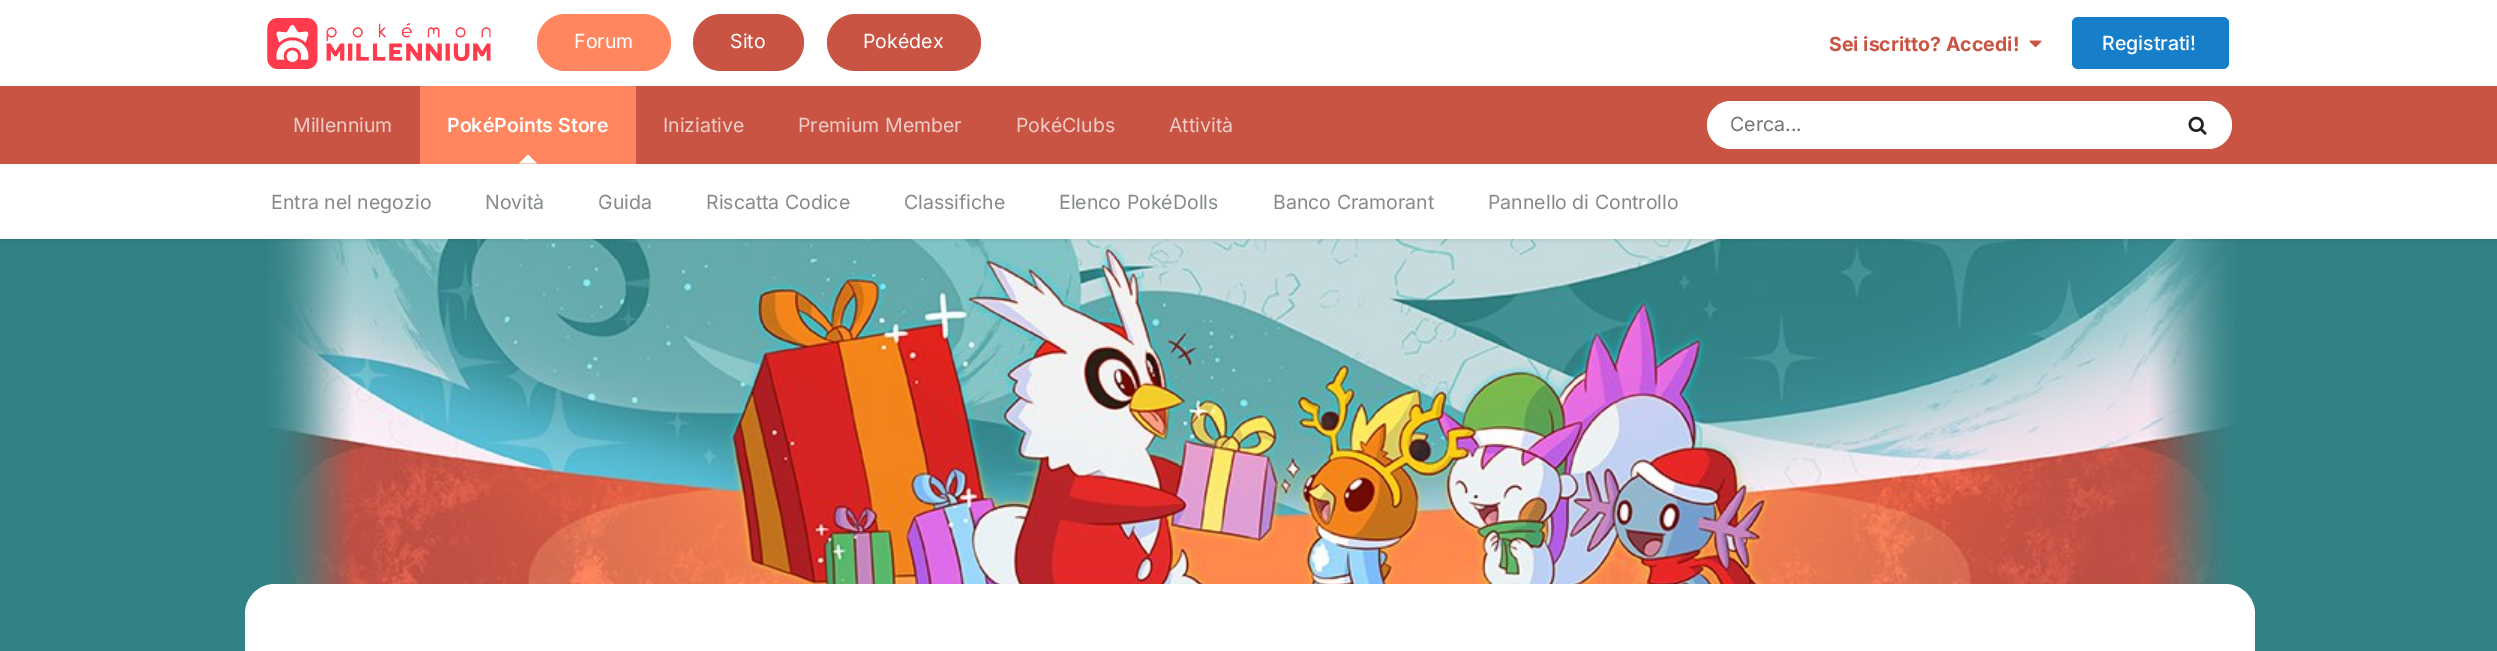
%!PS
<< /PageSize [2497 651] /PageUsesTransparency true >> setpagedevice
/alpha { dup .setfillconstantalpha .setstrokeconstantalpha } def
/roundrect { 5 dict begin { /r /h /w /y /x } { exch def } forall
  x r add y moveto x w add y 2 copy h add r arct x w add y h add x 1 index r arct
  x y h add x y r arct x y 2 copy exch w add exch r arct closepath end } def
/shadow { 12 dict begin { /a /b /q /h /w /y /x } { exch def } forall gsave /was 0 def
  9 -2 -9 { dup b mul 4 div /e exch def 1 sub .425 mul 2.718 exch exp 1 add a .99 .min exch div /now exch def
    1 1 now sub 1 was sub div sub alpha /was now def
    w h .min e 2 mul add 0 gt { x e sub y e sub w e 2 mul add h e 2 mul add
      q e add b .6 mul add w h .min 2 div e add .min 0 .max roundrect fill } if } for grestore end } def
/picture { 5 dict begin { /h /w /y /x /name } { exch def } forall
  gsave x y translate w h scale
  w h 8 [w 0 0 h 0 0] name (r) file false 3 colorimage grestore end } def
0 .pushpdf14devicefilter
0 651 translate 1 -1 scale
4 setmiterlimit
0.192 0.51 0.522 setrgbcolor
0 0 2497 651 rectfill
(img1.rgb) 268 239 1968 348 picture
1 setgray
0 0 2497 86 rectfill
(img2.rgb) 267 18 224 51 picture
1 0.525 0.369 setrgbcolor
537 14 134 57 28.5 roundrect fill
/Inter-Regular [19.5 0 0 -19.5 0 0] selectfont
1 setgray
574 48 moveto (Forum) show
0.792 0.329 0.263 setrgbcolor
693 14 111 57 28.5 roundrect fill
1 setgray
730 48 moveto (Sito) show
0.792 0.329 0.263 setrgbcolor
827 14 154 57 28.5 roundrect fill
1 setgray
863 48 moveto (Pokédex) show
/Inter-Bold [19.5 0 0 -19.5 0 0] selectfont
0.792 0.329 0.263 setrgbcolor
1829 51 moveto (Sei iscritto? Accedi!) show
(img3.rgb) 2029 40 13 8 picture
0.09 0.494 0.788 setrgbcolor
2072 17 157 52 6 roundrect fill
/Inter-Medium [19.5 0 0 -19.5 0 0] selectfont
1 setgray
2102 50 moveto (Registrati!) show
0.792 0.329 0.263 setrgbcolor
0 86 2497 78 rectfill
0 setgray
0 165 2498 75 0 1.5 0.1 shadow
1 0.525 0.369 setrgbcolor
420 86 216 78 rectfill
/Inter-SemiBold [19.5 0 0 -19.5 0 0] selectfont
1 setgray
447 132 moveto (PokéPoints Store) show
newpath 537 163.5 moveto 519 163.5 lineto 528 154.5 lineto closepath fill
0 164 2497 75 rectfill
/Inter-Regular [19.5 0 0 -19.5 0 0] selectfont
0.525 0.541 0.553 setrgbcolor
271 209 moveto (Entra nel negozio) show
485 209 moveto (Novità) show
598 209 moveto (Guida) show
706 209 moveto (Riscatta Codice) show
904 209 moveto (Classifiche) show
1059 209 moveto (Elenco PokéDolls) show
1273 209 moveto (Banco Cramorant) show
1488 209 moveto (Pannello di Controllo) show
0.937 0.8 0.78 setrgbcolor
293 132 moveto (Millennium) show
663 132 moveto (Iniziative) show
798 132 moveto (Premium Member) show
1016 132 moveto (PokéClubs) show
1169 132 moveto (Attività) show
1 setgray
1707 101 525 48 24 roundrect fill
0.459 setgray
1730 131 moveto (Cerca...) show
(img4.rgb) 2188 116 19 19 picture
1 setgray
245 584 2010 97 30 roundrect fill
.poppdf14devicefilter showpage
